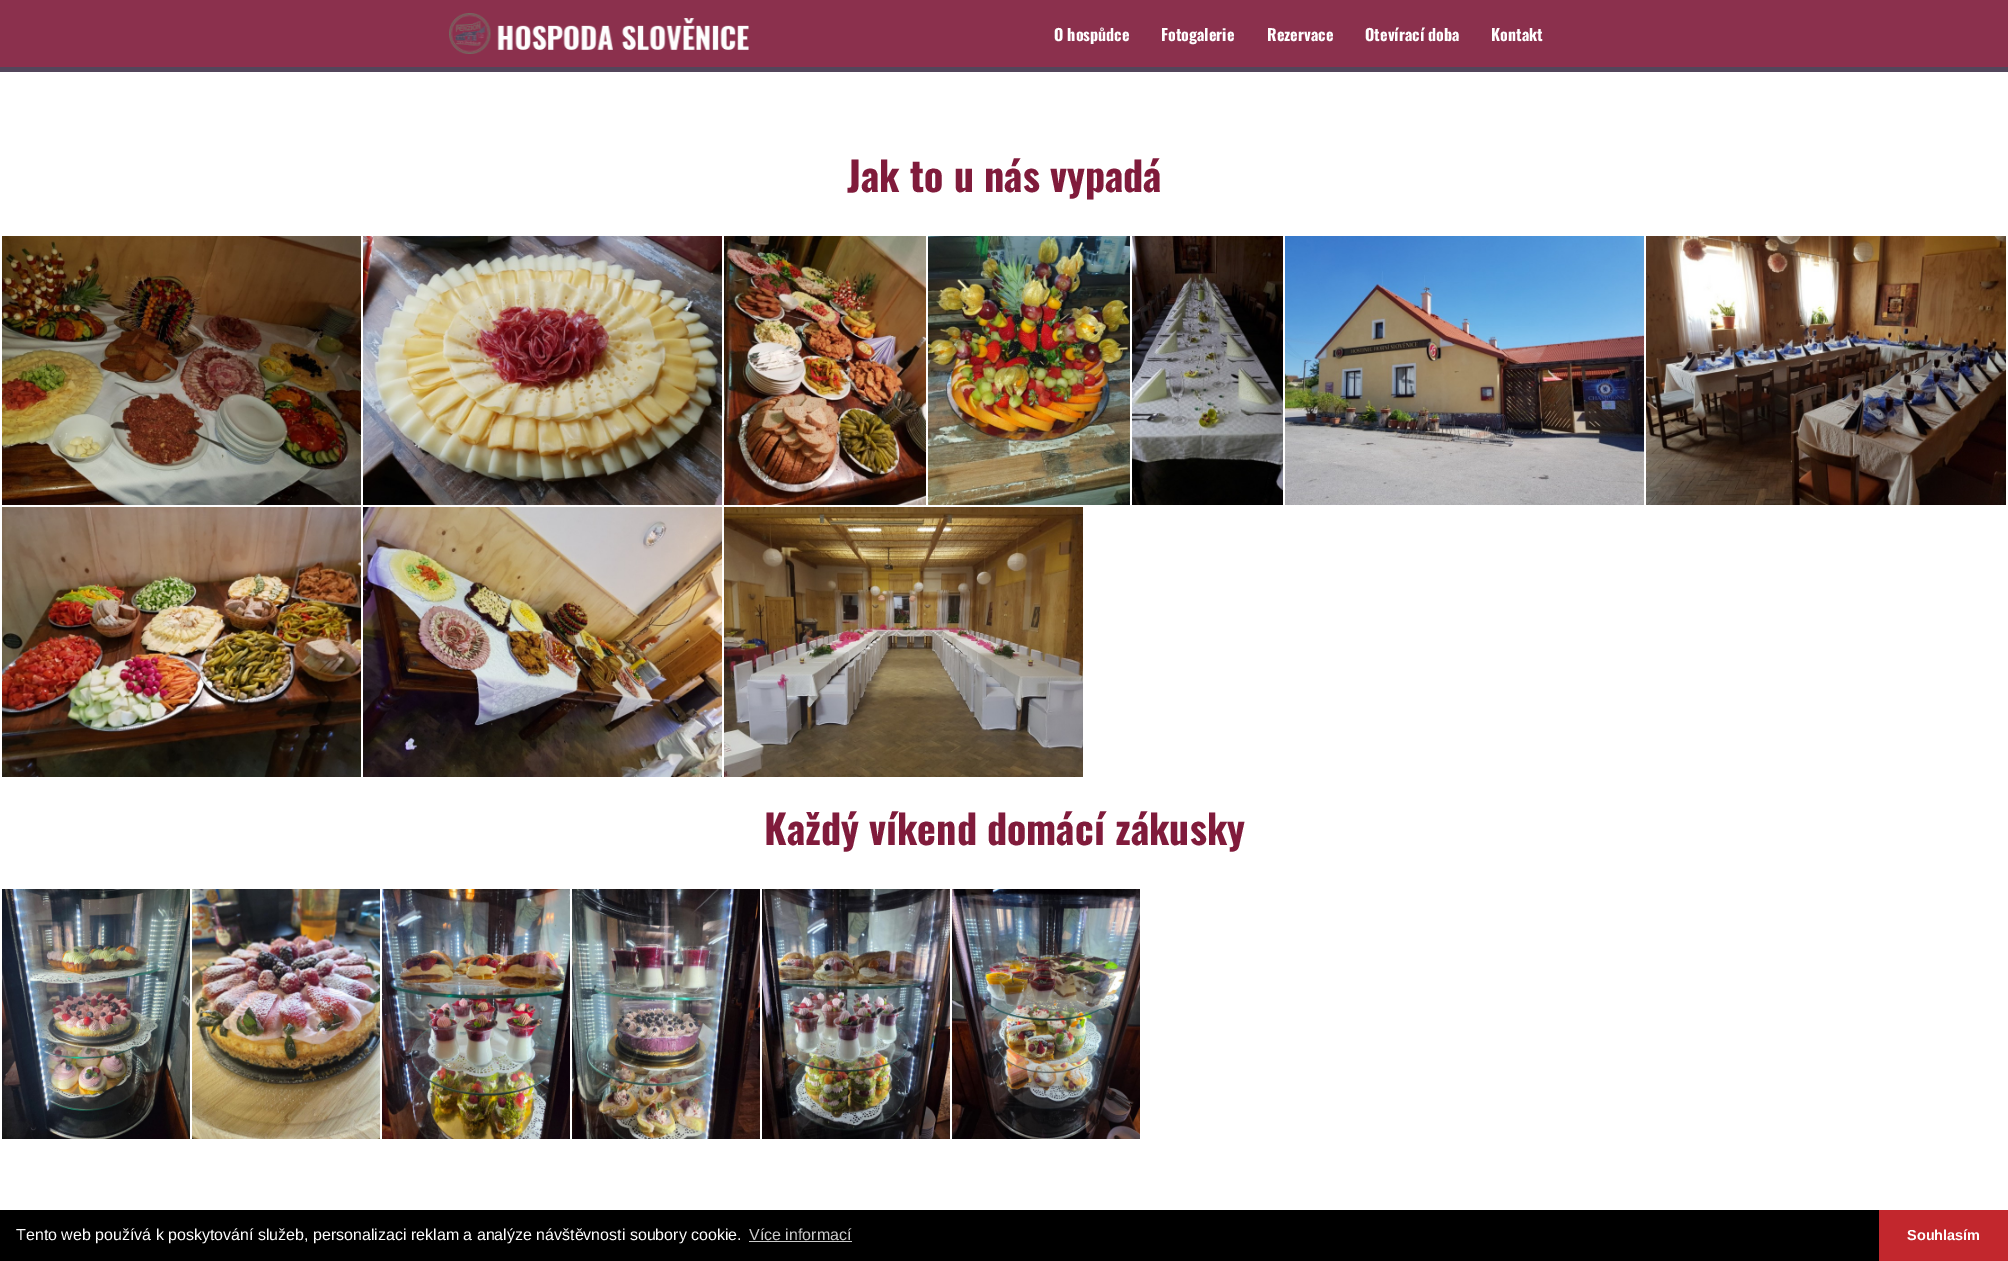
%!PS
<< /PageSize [2008 1261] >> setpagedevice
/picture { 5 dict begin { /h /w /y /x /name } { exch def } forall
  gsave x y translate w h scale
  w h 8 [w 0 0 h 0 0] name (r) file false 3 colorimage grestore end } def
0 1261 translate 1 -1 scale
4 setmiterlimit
1 setgray
0 0 2008 1261 rectfill
0.545 0.188 0.302 setrgbcolor
0 0 2008 67 rectfill
0.325 0.275 0.357 setrgbcolor
0 67 2008 5 rectfill
(img1.rgb) 449 13 300 41 picture
/Oswald-Bold [16 0 0 -16 0 0] selectfont
1 setgray
1054 41 moveto (O hospůdce) show
1161 41 moveto (Fotogalerie) show
1267 41 moveto (Rezervace) show
1365 41 moveto (Otevírací doba) show
1491 41 moveto (Kontakt) show
/Oswald-Bold [40 0 0 -40 0 0] selectfont
0.502 0.106 0.231 setrgbcolor
847 192 moveto (Jak to u nás vypadá) show
(img2.rgb) 2 236 359 269 picture
(img3.rgb) 363 236 359 269 picture
(img4.rgb) 724 236 202 269 picture
(img5.rgb) 928 236 202 269 picture
(img6.rgb) 1132 236 151 269 picture
(img7.rgb) 1285 236 359 269 picture
(img8.rgb) 1646 236 360 269 picture
(img9.rgb) 2 507 359 270 picture
(img10.rgb) 363 507 359 270 picture
(img11.rgb) 724 507 359 270 picture
764 845 moveto (Každý víkend domácí zákusky) show
(img12.rgb) 2 889 188 250 picture
(img13.rgb) 192 889 188 250 picture
(img14.rgb) 382 889 188 250 picture
(img15.rgb) 572 889 188 250 picture
(img16.rgb) 762 889 188 250 picture
(img17.rgb) 952 889 188 250 picture
0 setgray
0 1210 1879 51 rectfill
/LiberationSans-Regular [16 0 0 -16 0 0] selectfont
1 setgray
16 1240 moveto (Tento web používá k poskytování služeb, personalizaci reklam a analýze návštěvnosti soubory cookie.) show
0.8 setgray
749 1240 moveto (Více informací) show
749 1241 103 1 rectfill
0.761 0.153 0.176 setrgbcolor
1879 1210 129 51 rectfill
/LiberationSans-Bold [14.5 0 0 -14.5 0 0] selectfont
1 setgray
1907 1240 moveto (Souhlasím) show
showpage
